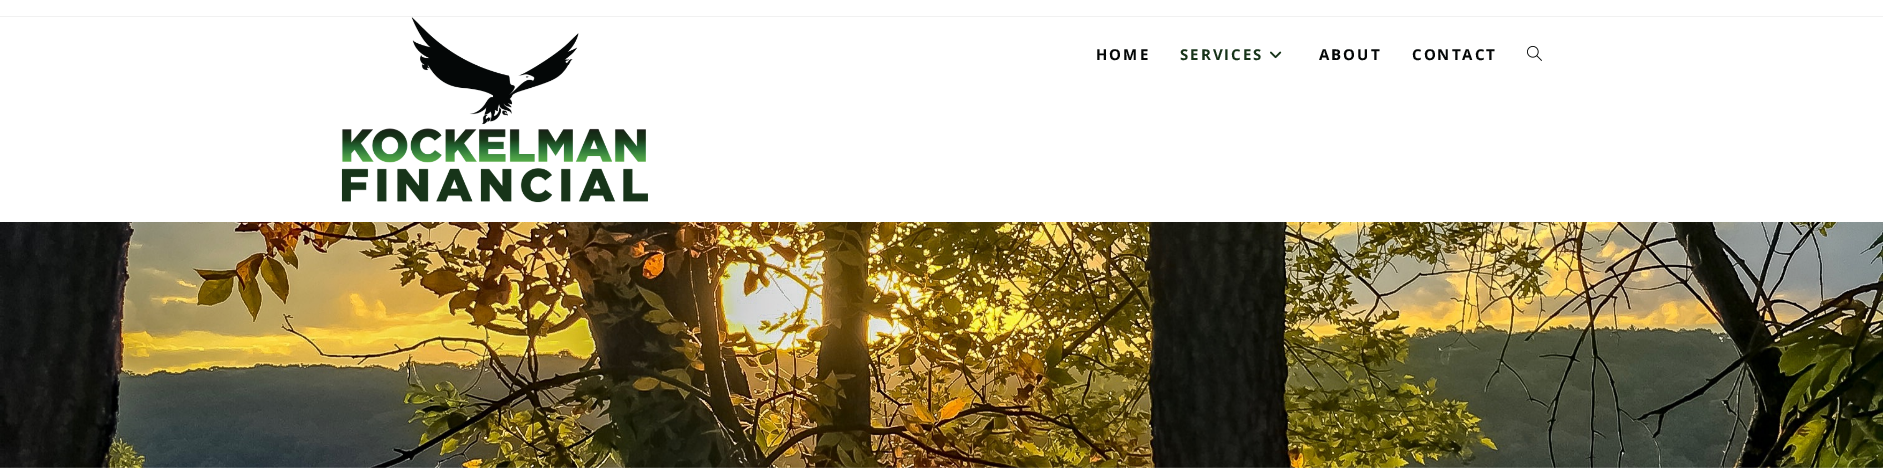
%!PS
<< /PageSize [1883 468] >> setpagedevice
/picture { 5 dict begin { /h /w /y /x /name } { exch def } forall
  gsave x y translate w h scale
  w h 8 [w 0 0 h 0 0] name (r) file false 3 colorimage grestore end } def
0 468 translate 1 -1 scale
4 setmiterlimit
1 setgray
0 0 1883 468 rectfill
0.945 setgray
0 16 1883 1 rectfill
(img1.rgb) 341 17 307 186 picture
/OpenSans-Bold [15 0 0 -15 0 0] selectfont
0.016 0.027 0.027 setrgbcolor
1096 60 moveto 2 0 (HOME) ashow
0.09 0.204 0.098 setrgbcolor
1180 60 moveto 2 0 (SERVICES) ashow
(img2.rgb) 1270 51 12 8 picture
0.016 0.027 0.027 setrgbcolor
1319 60 moveto 2 0 (ABOUT) ashow
1412 60 moveto 2 0 (CONTACT) ashow
(img3.rgb) 1527 45 15 16 picture
(img4.rgb) 0 222 1883 246 picture
showpage
